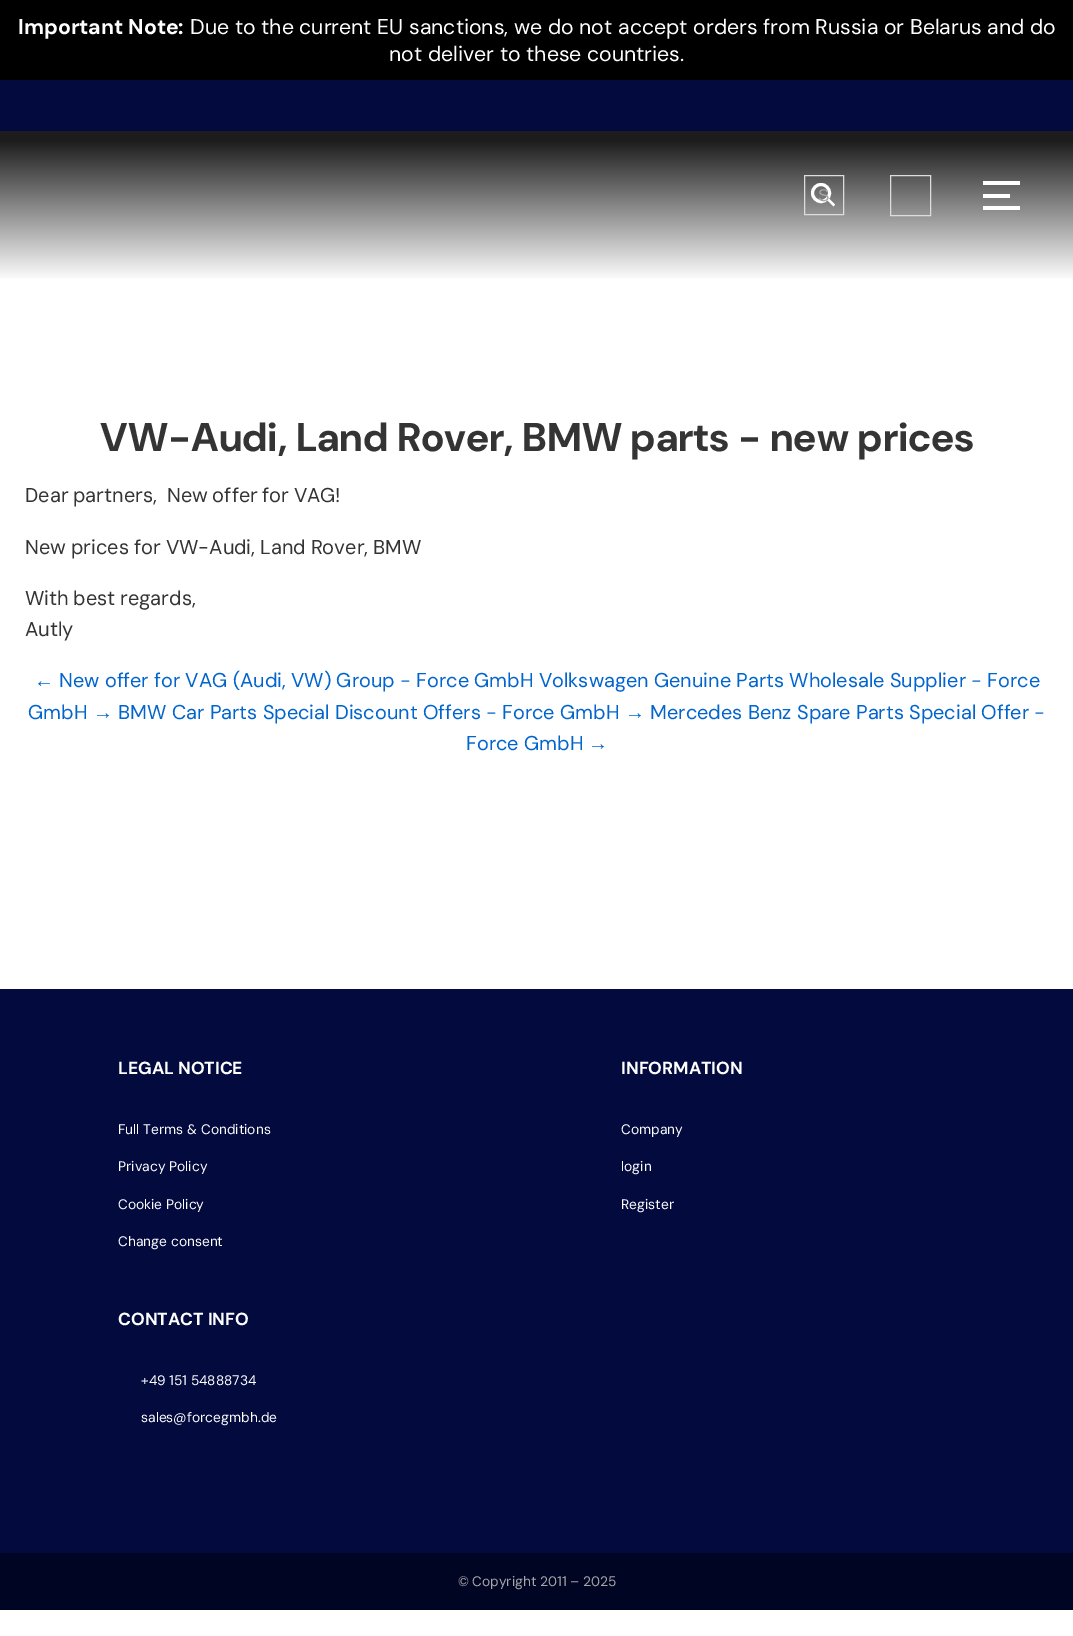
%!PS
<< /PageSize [1073 1636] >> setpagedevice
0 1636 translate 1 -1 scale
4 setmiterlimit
1 setgray
0 0 1073 1636 rectfill
0 setgray
0 0 1073 80 rectfill
/DMSans-Bold [21.25 0 0 -21.25 0 0] selectfont
1 setgray
18 34 moveto (Important Note:) show
/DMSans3-Regular [21.25 0 0 -21.25 0 0] selectfont
190 34 moveto (Due to the current EU sanctions, we do not accept orders from Russia or Belarus and do) show
389 61 moveto (not deliver to these countries.) show
0.012 0.039 0.243 setrgbcolor
0 80 1073 51 rectfill
gsave newpath 0 131 moveto 1073 131 lineto 1073 279 lineto 0 279 lineto closepath clip newpath
<< /ShadingType 2 /ColorSpace /DeviceRGB /Coords [537 131 537 281] /Extend [true true] /Function << /FunctionType 3 /Domain [0 1] /Functions [<< /FunctionType 2 /Domain [0 1] /C0 [0.11 0.11 0.11] /C1 [0.11 0.11 0.11] /N 1 >> << /FunctionType 2 /Domain [0 1] /C0 [0.11 0.11 0.11] /C1 [1 1 1] /N 1 >>] /Bounds [0.06] /Encode [0 1 0 1] >> >> shfill grestore
0.867 setgray
804.5 175.5 39 39 rectstroke
1 setgray
newpath 829 198.5 moveto 835 204.5 lineto 833.5 206.5 lineto 827.5 200.5 lineto closepath fill
3 setlinewidth
newpath 821 193 8.5 0 360 arc closepath stroke
/LiberationSans-Regular [17 0 0 -17 0 0] selectfont
0.655 setgray
818 201 moveto (S) show
0.867 setgray
1 setlinewidth
890.5 175.5 40 40 rectstroke
1 setgray
983 194 27 4 rectfill
983 181 37 4 rectfill
983 206 37 4 rectfill
/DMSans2-Bold [40 0 0 -40 0 0] selectfont
0.204 setgray
100 451 moveto (VW-Audi, Land Rover, BMW parts - new prices) show
/DMSans2-Regular [20 0 0 -20 0 0] selectfont
25 502 moveto -1 0 32 (Dear partners,) widthshow
167 502 moveto -1 0 32 (New offer for VAG!) widthshow
25 554 moveto -0.5 0 32 (New prices for VW-Audi, Land Rover, BMW) widthshow
25 605 moveto -1 0 32 (With best regards,) widthshow
25 636 moveto (Autly) show
/LiberationSans-Regular [20 0 0 -20 0 0] selectfont
0.008 0.396 0.804 setrgbcolor
34 687 moveto (←) show
/DMSans-Regular [20 0 0 -20 0 0] selectfont
59 687 moveto (New offer for VAG \(Audi, VW\) Group - Force GmbH Volkswagen Genuine Parts Wholesale Supplier - Force) show
28 719 moveto (GmbH) show
/LiberationSans-Regular [20 0 0 -20 0 0] selectfont
93 719 moveto (→) show
/DMSans-Regular [20 0 0 -20 0 0] selectfont
118 719 moveto (BMW Car Parts Special Discount Offers - Force GmbH) show
/LiberationSans-Regular [20 0 0 -20 0 0] selectfont
625 719 moveto (→) show
/DMSans-Regular [20 0 0 -20 0 0] selectfont
650 719 moveto (Mercedes Benz Spare Parts Special Offer -) show
466 750 moveto (Force GmbH) show
/LiberationSans-Regular [20 0 0 -20 0 0] selectfont
588 750 moveto (→) show
0.012 0.039 0.243 setrgbcolor
0 989 1073 564 rectfill
/DMSans3-Bold [17.5 0 0 -17.5 0 0] selectfont
1 setgray
118 1074 moveto (LEGAL NOTICE) show
/DMSans2-Regular [13.75 0 0 -13.75 0 0] selectfont
118 1134 moveto (Full Terms & Conditions) show
118 1171 moveto (Privacy Policy) show
118 1209 moveto (Cookie Policy) show
118 1246 moveto (Change consent) show
/DMSans3-Bold [17.5 0 0 -17.5 0 0] selectfont
621 1074 moveto (INFORMATION) show
/DMSans2-Regular [13.75 0 0 -13.75 0 0] selectfont
621 1134 moveto (Company) show
621 1171 moveto (login) show
621 1209 moveto (Register) show
/DMSans3-Bold [17.5 0 0 -17.5 0 0] selectfont
118 1325 moveto (CONTACT INFO) show
/DMSans2-Regular [13.75 0 0 -13.75 0 0] selectfont
141 1385 moveto (+49 151 54888734) show
141 1422 moveto (sales@forcegmbh.de) show
0.004 0.02 0.141 setrgbcolor
0 1553 1073 57 rectfill
0.655 setgray
458 1586 moveto (©) show
472 1586 moveto (Copyright 2011 – 2025) show
showpage
